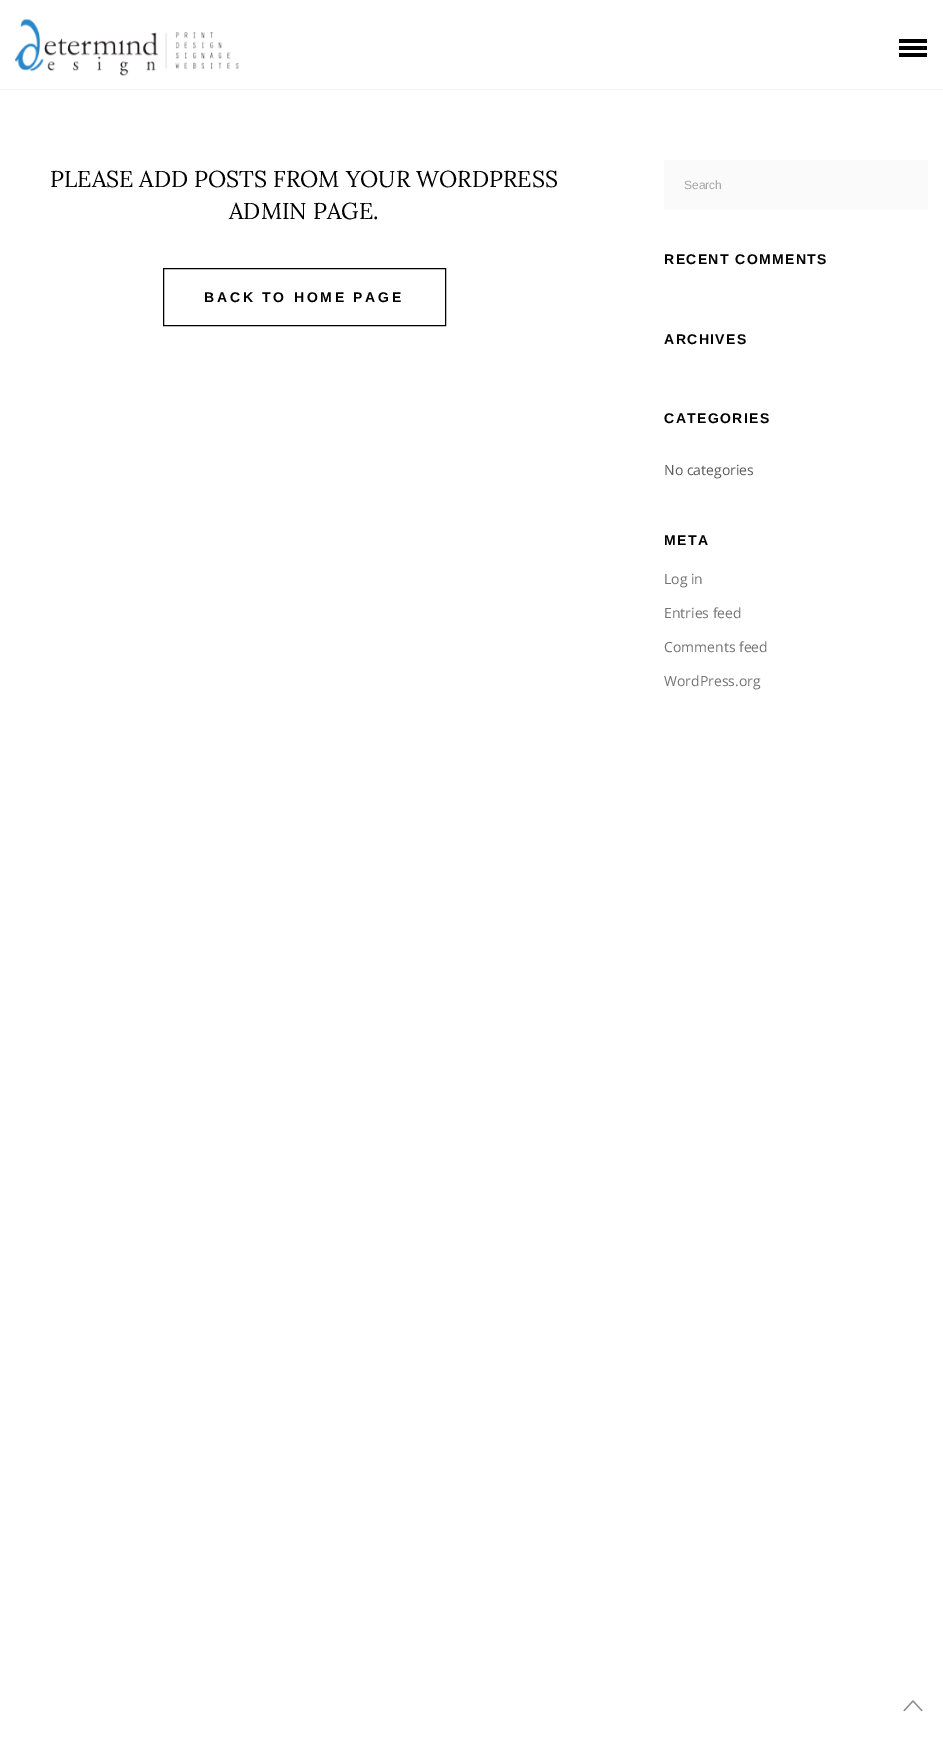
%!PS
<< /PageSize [943 1737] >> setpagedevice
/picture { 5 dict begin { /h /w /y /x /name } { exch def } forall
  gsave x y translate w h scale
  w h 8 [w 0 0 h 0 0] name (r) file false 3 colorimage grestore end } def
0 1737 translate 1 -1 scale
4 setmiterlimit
1 setgray
0 0 943 1737 rectfill
0.957 setgray
0 89 943 1 rectfill
(img1.rgb) 15 19 224 57 picture
0 setgray
899 39 28 4 rectfill
899 46 28 4 rectfill
899 53 28 4 rectfill
/Lora-Regular [23 0 0 -23 0 0] selectfont
50 187 moveto (PLEASE ADD POSTS FROM YOUR WORDPRESS) show
229 219 moveto (ADMIN PAGE.) show
163.5 268.5 282 57 rectstroke
/LiberationSans-Bold [14 0 0 -14 0 0] selectfont
204 302 moveto 2.75 0 (BACK TO HOME PAGE) ashow
0.98 setgray
664 160 264 50 rectfill
/LiberationSans-Regular [12 0 0 -12 0 0] selectfont
0.651 setgray
684 189 moveto (Search) show
/LiberationSans-Bold [14 0 0 -14 0 0] selectfont
0 setgray
664 264 moveto 1.4 0 (RECENT COMMENTS) ashow
664 344 moveto 1.4 0 (ARCHIVES) ashow
664 423 moveto 1.4 0 (CATEGORIES) ashow
/OpenSans-Regular [14 0 0 -14 0 0] selectfont
0.353 setgray
664 475 moveto (No categories) show
/LiberationSans-Bold [14 0 0 -14 0 0] selectfont
0 setgray
664 545 moveto 1.4 0 (META) ashow
/OpenSans-Regular [14 0 0 -14 0 0] selectfont
0.451 setgray
664 584 moveto (Log in) show
664 618 moveto (Entries feed) show
664 652 moveto (Comments feed) show
664 686 moveto (WordPress.org) show
(img2.rgb) 903 1700 20 12 picture
showpage
